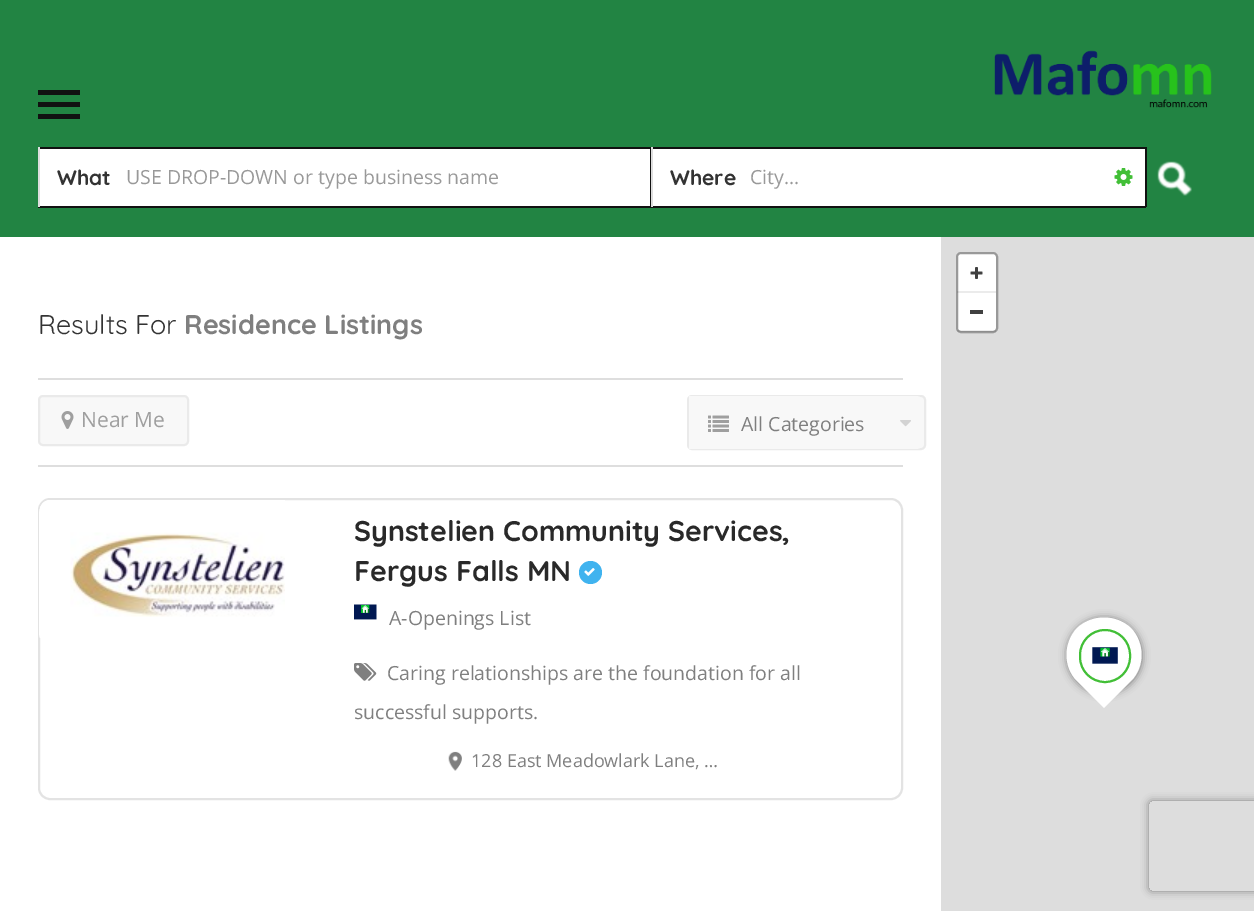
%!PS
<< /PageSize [1254 911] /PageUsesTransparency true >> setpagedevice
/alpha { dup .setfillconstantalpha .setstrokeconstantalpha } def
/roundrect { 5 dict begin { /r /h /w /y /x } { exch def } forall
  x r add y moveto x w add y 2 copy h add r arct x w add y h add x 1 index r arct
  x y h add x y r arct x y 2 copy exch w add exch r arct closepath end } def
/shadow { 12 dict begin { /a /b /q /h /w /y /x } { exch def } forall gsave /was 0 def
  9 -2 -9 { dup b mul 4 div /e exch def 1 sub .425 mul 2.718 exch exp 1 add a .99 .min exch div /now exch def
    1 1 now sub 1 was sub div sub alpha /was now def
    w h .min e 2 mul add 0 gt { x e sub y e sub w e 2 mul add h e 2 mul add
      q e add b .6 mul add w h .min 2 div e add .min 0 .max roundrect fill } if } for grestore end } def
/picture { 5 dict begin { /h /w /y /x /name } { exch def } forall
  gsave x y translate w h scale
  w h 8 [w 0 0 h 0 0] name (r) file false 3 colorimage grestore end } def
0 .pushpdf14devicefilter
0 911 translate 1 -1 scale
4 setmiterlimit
1 setgray
0 0 1254 911 rectfill
0.133 0.518 0.263 setrgbcolor
0 0 1254 237 rectfill
(img1.rgb) 994 50 218 58 picture
0.067 setgray
38 90 42 5 rectfill
38 102 42 5 rectfill
38 114 42 5 rectfill
1 setgray
40 149 610 57 rectfill
0.067 setgray
38 147 1108 2 rectfill
650 147 1 60 rectfill
38 206 613 2 rectfill
0.871 setgray
38 147 2 60 rectfill
/Quicksand-Bold [21 0 0 -21 0 0] selectfont
0.2 setgray
57 185 moveto (What) show
/OpenSans-Regular [19.5 0 0 -19.5 0 0] selectfont
0.6 setgray
126 184 moveto (USE DROP-DOWN or type business name) show
1 setgray
653 149 492 57 rectfill
0.067 setgray
1145 147 2 60 rectfill
651 206 495 2 rectfill
0.871 setgray
651 147 2 60 rectfill
/Quicksand-Bold [21 0 0 -21 0 0] selectfont
0.2 setgray
670 185 moveto (Where) show
/OpenSans-Regular [19.5 0 0 -19.5 0 0] selectfont
0.6 setgray
750 184 moveto (City...) show
(img2.rgb) 1114 168 19 18 picture
(img3.rgb) 1157 161 35 35 picture
/Quicksand-Regular [27 0 0 -27 0 0] selectfont
0.2 setgray
38 334 moveto (Results For) show
/Quicksand-Bold [27 0 0 -27 0 0] selectfont
0.498 setgray
184 334 moveto (Residence Listings) show
0.871 setgray
38 378 865 2 rectfill
38 465 865 2 rectfill
0.973 setgray
39 396 149 49 4 roundrect gsave fill grestore
0.918 setgray
2 setlinewidth
stroke
(img4.rgb) 61 411 13 18 picture
/OpenSans-Regular [21 0 0 -21 0 0] selectfont
0.624 setgray
81 427 moveto (Near Me) show
0.973 setgray
688 396 237 53 4 roundrect gsave fill grestore
0.918 setgray
stroke
0.973 setgray
689 396 40 53 rectfill
(img5.rgb) 708 415 21 17 picture
newpath 729 396 moveto 916 396 lineto 920.5 396 924 399.5 924 404 curveto 924 441 lineto 924 445.5 920.5 449 916 449 curveto 729 449 lineto closepath fill
/OpenSans-Regular [19.5 0 0 -19.5 0 0] selectfont
0.498 setgray
741 431 moveto (All Categories) show
(img6.rgb) 900 420 11 7 picture
0.89 setgray
39 499 863 300 11 roundrect stroke
(img7.rgb) 39 500 246 138 picture
/Quicksand-Bold [28.5 0 0 -28.5 0 0] selectfont
0.161 setgray
354 541 moveto (Synstelien Community Services,) show
354 581 moveto (Fergus Falls MN) show
0.251 0.702 0.937 setrgbcolor
newpath 590.5 572.5 11.5 0 360 arc closepath fill
(img8.rgb) 584 568 11 8 picture
(img9.rgb) 354 604 23 16 picture
/OpenSans-Regular [19.5 0 0 -19.5 0 0] selectfont
0.498 setgray
389 625 moveto (A-Openings List) show
(img10.rgb) 354 663 23 18 picture
387 680 moveto (Caring relationships are the foundation for all) show
354 719 moveto (successful supports.) show
(img11.rgb) 448 751 14 20 picture
/OpenSans-Regular [18 0 0 -18 0 0] selectfont
471 767 moveto (128 East Meadowlark Lane, …) show
0.867 setgray
941 237 313 674 rectfill
1 setgray
956 252 42 81 5 roundrect fill
0.4 alpha
0 setgray
957 253 40 79 4 roundrect stroke
1 alpha
(img12.rgb) 970 267 13 12 picture
0.08 alpha
957 291 39 2 rectfill
1 alpha
0.251 setgray
970 310 13 4 rectfill
0.08 alpha
0 setgray
957 330 39 2 rectfill
1 alpha
1067 618 75 75 37.5 4 0.47 shadow
1 setgray
newpath 1077 628 moveto 1092 614 1116 614 1131 628 curveto 1145 643 1145 667 1131 681 curveto 1104 708 lineto 1077 681 lineto 1063 667 1063 643 1077 628 curveto closepath fill
0.259 0.749 0.216 setrgbcolor
1080 630 50 52 25 roundrect stroke
(img13.rgb) 1092 647 26 17 picture
gsave
newpath 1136 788 moveto 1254 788 lineto 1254 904 lineto 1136 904 lineto closepath 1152 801 moveto 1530 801 lineto 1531.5 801 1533 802.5 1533 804 curveto 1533 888 lineto 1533 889.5 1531.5 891 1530 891 curveto 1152 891 lineto 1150.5 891 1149 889.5 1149 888 curveto 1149 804 lineto 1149 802.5 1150.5 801 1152 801 curveto closepath eoclip newpath
0.502 setgray
1149 801 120 90 3 4 1 shadow
grestore
.poppdf14devicefilter showpage
